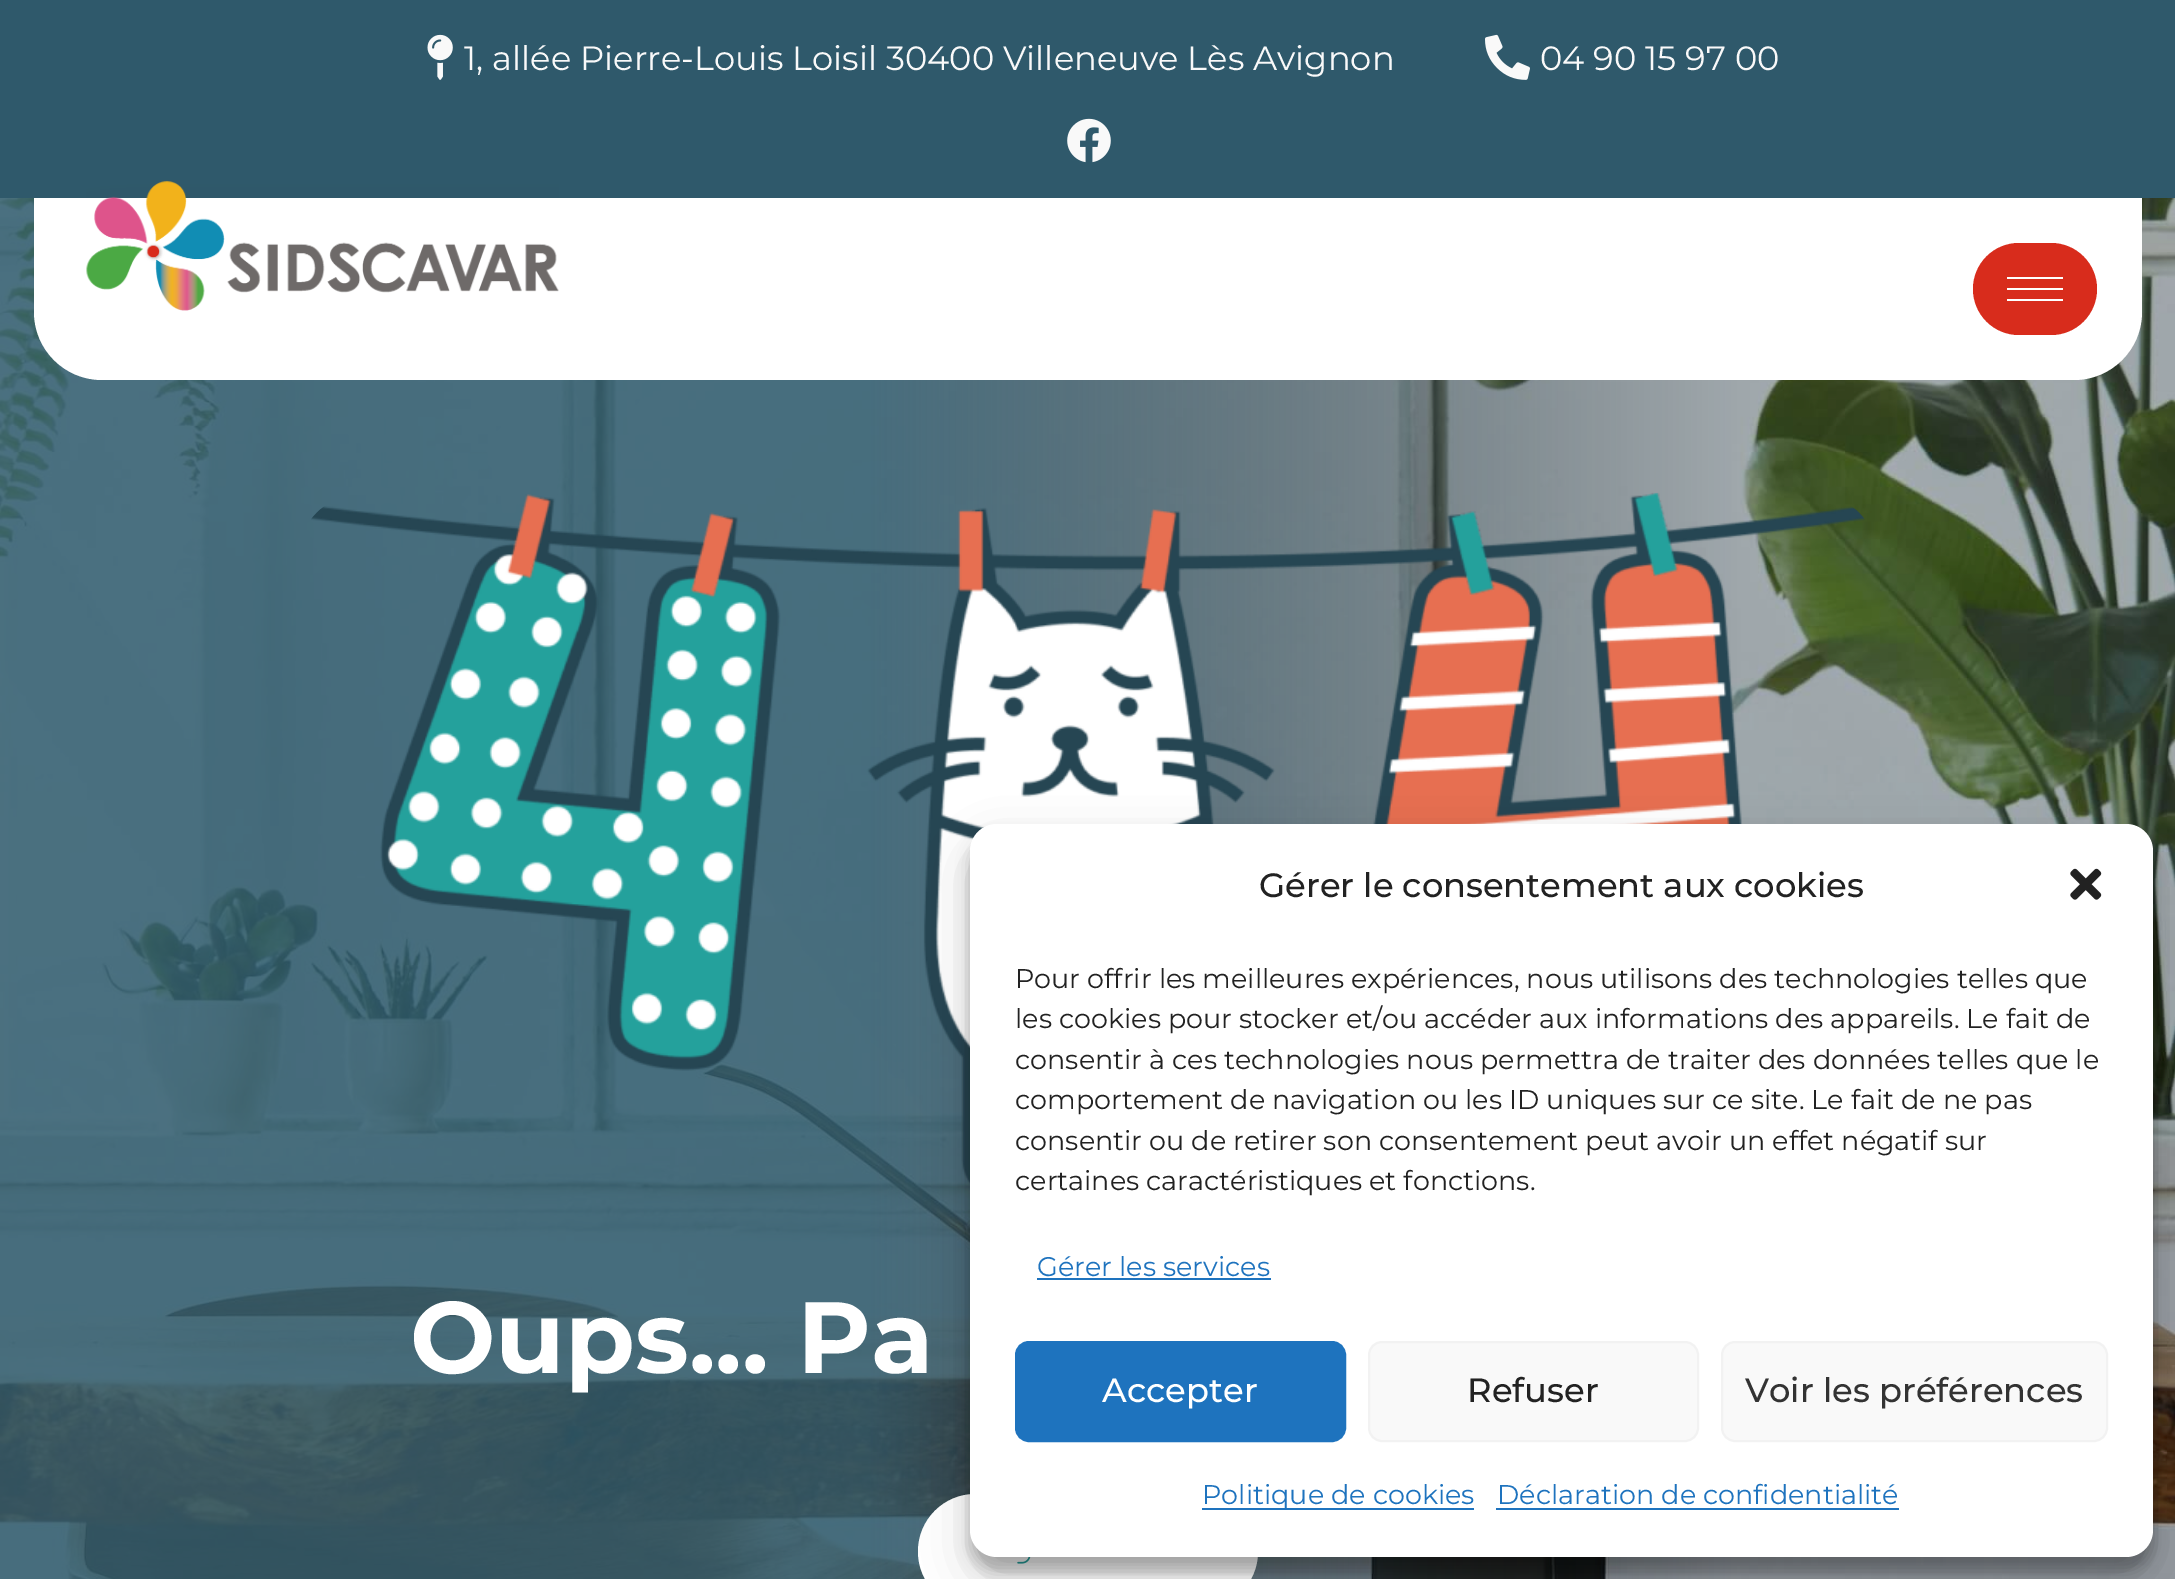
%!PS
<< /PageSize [2175 1579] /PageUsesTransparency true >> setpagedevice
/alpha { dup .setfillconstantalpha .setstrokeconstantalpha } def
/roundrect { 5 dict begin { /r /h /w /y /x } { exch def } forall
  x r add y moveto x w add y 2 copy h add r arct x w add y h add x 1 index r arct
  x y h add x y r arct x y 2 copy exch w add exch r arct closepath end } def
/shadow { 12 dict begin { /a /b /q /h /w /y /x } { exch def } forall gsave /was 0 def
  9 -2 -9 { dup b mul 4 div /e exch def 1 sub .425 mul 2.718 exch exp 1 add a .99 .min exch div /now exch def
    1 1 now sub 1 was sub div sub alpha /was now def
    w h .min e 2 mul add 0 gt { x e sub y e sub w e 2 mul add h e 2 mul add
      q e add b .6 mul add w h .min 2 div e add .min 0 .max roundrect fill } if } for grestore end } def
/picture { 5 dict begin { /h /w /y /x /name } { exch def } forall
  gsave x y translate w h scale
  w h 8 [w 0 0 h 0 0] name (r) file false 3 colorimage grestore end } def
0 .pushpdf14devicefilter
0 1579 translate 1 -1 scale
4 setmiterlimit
1 setgray
0 0 2175 1579 rectfill
0.184 0.349 0.42 setrgbcolor
0 0 2175 198 rectfill
(img1.rgb) 427 34 26 46 picture
/Montserrat-Regular [33.75 0 0 -33.75 0 0] selectfont
0.976 setgray
464 70 moveto (1, allée Pierre-Louis Loisil 30400 Villeneuve Lès Avignon) show
(img2.rgb) 1485 34 45 46 picture
1540 70 moveto (04 90 15 97 00) show
(img3.rgb) 1067 118 44 45 picture
(img5.rgb) 0 198 2175 1381 picture
1 setgray
newpath 34 198 moveto 2142 198 lineto 2142 312 lineto 2142 349.5 2111.5 380 2074 380 curveto 102 380 lineto 64.5 380 34 349.5 34 312 curveto closepath fill
(img4.rgb) 86 180 473 131 picture
0.847 0.173 0.11 setrgbcolor
1973 243 124 92 46 roundrect fill
1 setgray
2007 277 56 2 rectfill
2007 288 56 2 rectfill
2007 299 56 2 rectfill
(img6.rgb) 311 492 1554 693 picture
/Montserrat-Bold [101.25 0 0 -101.25 0 0] selectfont
410 1373 moveto (Oups... Pa) show
918 1494 340 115 57.5 roundrect fill
(img7.rgb) 1017 1557 14 7 picture
0 setgray
970 837 1183 734 27 7 0.23 shadow
970 846 1183 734 27 22.5 0.19 shadow
1 setgray
970 824 1183 733 27 roundrect fill
/Montserrat-Medium [33.75 0 0 -33.75 0 0] selectfont
0.133 setgray
1259 897 moveto (Gérer le consentement aux cookies) show
(img8.rgb) 2070 868 32 32 picture
/Montserrat-Regular [27 0 0 -27 0 0] selectfont
1015 988 moveto (Pour offrir les meilleures expériences, nous utilisons des technologies telles que) show
1015 1028 moveto (les cookies pour stocker et/ou accéder aux informations des appareils. Le fait de) show
1015 1069 moveto (consentir à ces technologies nous permettra de traiter des données telles que le) show
1015 1109 moveto (comportement de navigation ou les ID uniques sur ce site. Le fait de ne pas) show
1015 1150 moveto (consentir ou de retirer son consentement peut avoir un effet négatif sur) show
1015 1190 moveto (certaines caractéristiques et fonctions.) show
0.118 0.451 0.745 setrgbcolor
1037 1276 moveto (Gérer les services) show
1037 1278 234 2 rectfill
1016 1342 329 99 13 roundrect gsave fill grestore
2 setlinewidth
stroke
/Montserrat-Medium [33.75 0 0 -33.75 0 0] selectfont
1 setgray
1102 1402 moveto (Accepter) show
0.976 setgray
1369 1342 329 99 13 roundrect gsave fill grestore
0.949 setgray
stroke
0.133 setgray
1467 1402 moveto (Refuser) show
0.976 setgray
1722 1342 385 99 13 roundrect gsave fill grestore
0.949 setgray
stroke
0.2 setgray
1745 1402 moveto (Voir les préférences) show
0.118 0.451 0.745 setrgbcolor
1202 1508 272 2 rectfill
/Montserrat-Regular [27 0 0 -27 0 0] selectfont
1202 1504 moveto (Politique de cookies) show
1497 1504 moveto (Déclaration de confidentialité) show
1496 1508 403 2 rectfill
.poppdf14devicefilter showpage
